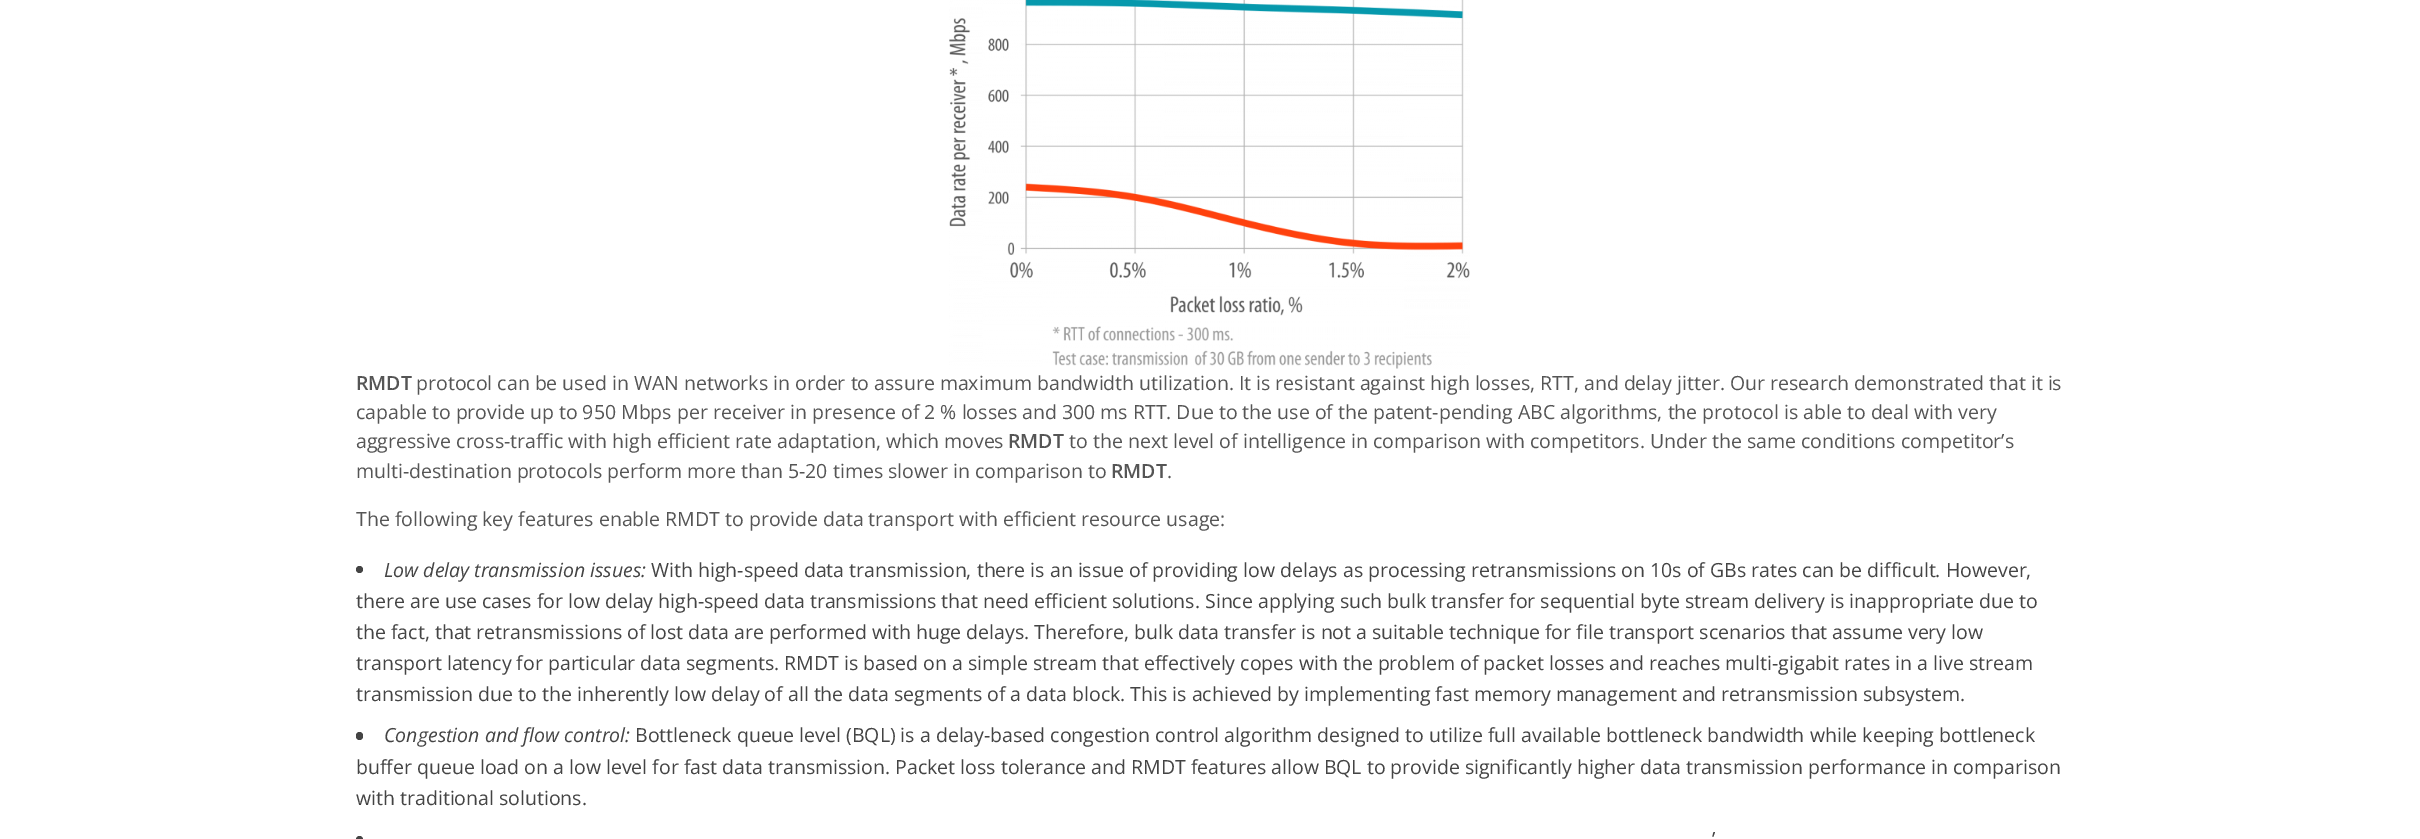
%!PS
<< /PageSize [2420 839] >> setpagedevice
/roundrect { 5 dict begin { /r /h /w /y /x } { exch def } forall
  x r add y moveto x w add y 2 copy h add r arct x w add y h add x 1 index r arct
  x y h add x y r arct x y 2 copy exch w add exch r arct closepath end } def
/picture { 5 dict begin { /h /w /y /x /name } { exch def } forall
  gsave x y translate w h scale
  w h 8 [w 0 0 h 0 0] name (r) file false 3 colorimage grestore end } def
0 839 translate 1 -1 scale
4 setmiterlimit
1 setgray
0 0 2420 839 rectfill
(img1.rgb) 949 0 521 369 picture
/OpenSans-SemiBold [19.5 0 0 -19.5 0 0] selectfont
0.333 setgray
356 390 moveto (RMDT) show
/OpenSans-Regular [19.5 0 0 -19.5 0 0] selectfont
416 390 moveto (protocol can be used in WAN networks in order to assure maximum bandwidth utilization. It is resistant against high losses, RTT, and delay jitter. Our research demonstrated that it is) show
356 419 moveto (capable to provide up to 950 Mbps per receiver in presence of 2 % losses and 300 ms RTT. Due to the use of the patent-pending ABC algorithms, the protocol is able to deal with very) show
356 448 moveto (aggressive cross-traffic with high efficient rate adaptation, which moves) show
/OpenSans-SemiBold [19.5 0 0 -19.5 0 0] selectfont
1008 448 moveto (RMDT) show
/OpenSans-Regular [19.5 0 0 -19.5 0 0] selectfont
1069 448 moveto (to the next level of intelligence in comparison with competitors. Under the same conditions competitor’s) show
356 478 moveto (multi-destination protocols perform more than 5-20 times slower in comparison to) show
/OpenSans-SemiBold [19.5 0 0 -19.5 0 0] selectfont
1111 478 moveto (RMDT) show
/OpenSans-Regular [19.5 0 0 -19.5 0 0] selectfont
1167 478 moveto (.) show
356 526 moveto (The following key features enable RMDT to provide data transport with efficient resource usage:) show
0.267 setgray
newpath 359.5 569.5 3.5 0 360 arc closepath fill
/OpenSans-Italic [19.5 0 0 -19.5 0 0] selectfont
384 577 moveto (Low delay transmission issues:) show
/OpenSans-Regular [19.5 0 0 -19.5 0 0] selectfont
651 577 moveto (With high-speed data transmission, there is an issue of providing low delays as processing retransmissions on 10s of GBs rates can be difficult. However,) show
356 608 moveto (there are use cases for low delay high-speed data transmissions that need efficient solutions. Since applying such bulk transfer for sequential byte stream delivery is inappropriate due to) show
356 639 moveto (the fact, that retransmissions of lost data are performed with huge delays. Therefore, bulk data transfer is not a suitable technique for file transport scenarios that assume very low) show
356 670 moveto (transport latency for particular data segments. RMDT is based on a simple stream that effectively copes with the problem of packet losses and reaches multi-gigabit rates in a live stream) show
356 701 moveto (transmission due to the inherently low delay of all the data segments of a data block. This is achieved by implementing fast memory management and retransmission subsystem.) show
356 732 7 8 3.5 roundrect fill
/OpenSans-Italic [19.5 0 0 -19.5 0 0] selectfont
384 742 moveto (Congestion and flow control:) show
/OpenSans-Regular [19.5 0 0 -19.5 0 0] selectfont
635 742 moveto (Bottleneck queue level \(BQL\) is a delay-based congestion control algorithm designed to utilize full available bottleneck bandwidth while keeping bottleneck) show
356 774 moveto (buffer queue load on a low level for fast data transmission. Packet loss tolerance and RMDT features allow BQL to provide significantly higher data transmission performance in comparison) show
356 805 moveto (with traditional solutions.) show
1712 846 moveto (’) show
newpath 359.5 839.5 3.5 0 360 arc closepath fill
showpage
